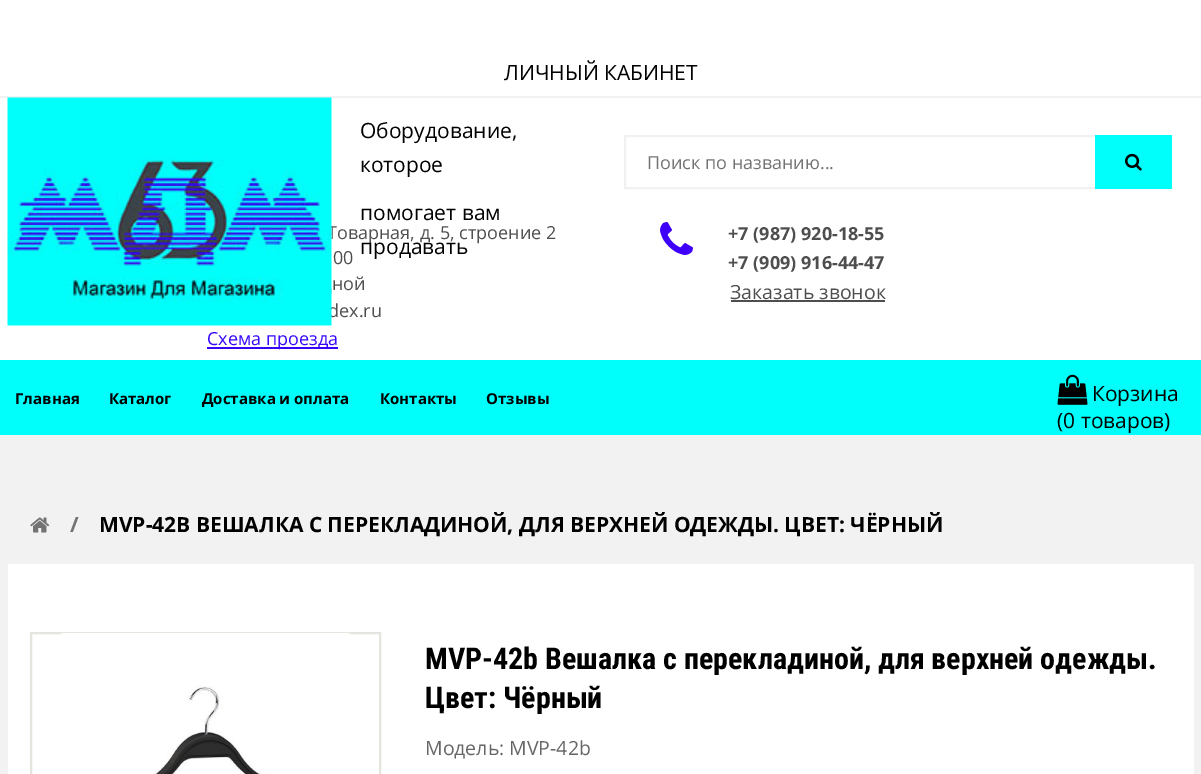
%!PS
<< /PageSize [1201 774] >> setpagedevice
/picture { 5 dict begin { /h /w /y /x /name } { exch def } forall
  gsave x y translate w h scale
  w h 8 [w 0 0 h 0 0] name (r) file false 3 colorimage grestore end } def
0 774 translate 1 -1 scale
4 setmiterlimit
0.949 setgray
0 0 1201 774 rectfill
1 setgray
0 0 1201 96 rectfill
/OpenSans-Regular [21 0 0 -21 0 0] selectfont
0 setgray
504 80 moveto (ЛИЧНЫЙ КАБИНЕТ) show
1 setgray
0 98 1201 262 rectfill
/OpenSans-Regular [18 0 0 -18 0 0] selectfont
0.306 setgray
327 239 moveto (Товарная, д. 5, строение 2) show
328 317 moveto (dex.ru) show
(img1.rgb) 7 97 325 229 picture
/OpenSans-Regular [21 0 0 -21 0 0] selectfont
0 setgray
360 138 moveto (Оборудование,) show
360 172 moveto (которое) show
360 220 moveto (помогает вам) show
360 254 moveto (продавать) show
0.945 setgray
2 setlinewidth
625 136 546 52 rectstroke
/OpenSans-Regular [18 0 0 -18 0 0] selectfont
0.455 0.451 0.451 setrgbcolor
647 169 moveto (Поиск по названию...) show
0 1 0.984 setrgbcolor
1095 135 77 54 rectfill
(img2.rgb) 1125 153 17 18 picture
0.306 setgray
333 264 moveto (00) show
332 290 moveto (ной) show
0.216 0.02 0.98 setrgbcolor
207 347 131 2 rectfill
207 345 moveto (Схема проезда) show
(img3.rgb) 660 222 33 33 picture
/OpenSans-Bold [18 0 0 -18 0 0] selectfont
0.306 setgray
728 240 moveto (+7 \(987\) 920-18-55) show
728 269 moveto (+7 \(909\) 916-44-47) show
/OpenSans-Regular [19.5 0 0 -19.5 0 0] selectfont
730 299 moveto (Заказать звонок) show
731 300 154 2 rectfill
0 1 0.984 setrgbcolor
0 360 1201 75 rectfill
/OpenSans-Bold [15 0 0 -15 0 0] selectfont
0 setgray
15 404 moveto (Главная) show
109 404 moveto (Каталог) show
202 404 moveto (Доставка и оплата) show
380 404 moveto (Контакты) show
486 404 moveto (Отзывы) show
(img4.rgb) 1057 374 31 31 picture
/OpenSans-Regular [21 0 0 -21 0 0] selectfont
1092 401 moveto (Корзина) show
1057 428 moveto (\(0 товаров\)) show
(img5.rgb) 30 517 20 16 picture
/OpenSans-Bold [21 0 0 -21 0 0] selectfont
0.455 0.451 0.451 setrgbcolor
70 532 moveto (/) show
0 setgray
99 532 moveto (MVP-42B ВЕШАЛКА С ПЕРЕКЛАДИНОЙ, ДЛЯ ВЕРХНЕЙ ОДЕЖДЫ. ЦВЕТ: ЧЁРНЫЙ) show
1 setgray
8 564 1186 210 rectfill
0.886 0.902 0.875 setrgbcolor
31 633 349 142 rectstroke
(img6.rgb) 61 633 289 141 picture
/RobotoCondensed-Bold [30 0 0 -30 0 0] selectfont
0 setgray
425 669 moveto (MVP-42b Вешалка с перекладиной, для верхней одежды.) show
425 708 moveto (Цвет: Чёрный) show
/OpenSans-Regular [19.5 0 0 -19.5 0 0] selectfont
0.4 setgray
425 755 moveto (Модель: MVP-42b) show
showpage
